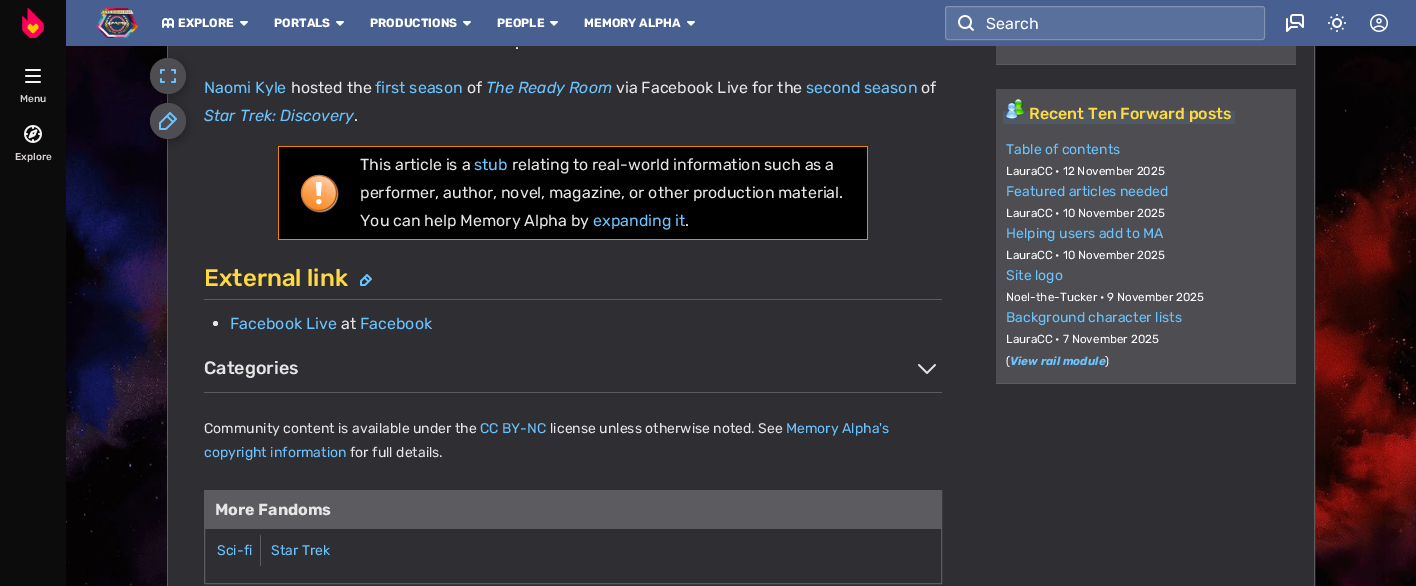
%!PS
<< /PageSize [1416 586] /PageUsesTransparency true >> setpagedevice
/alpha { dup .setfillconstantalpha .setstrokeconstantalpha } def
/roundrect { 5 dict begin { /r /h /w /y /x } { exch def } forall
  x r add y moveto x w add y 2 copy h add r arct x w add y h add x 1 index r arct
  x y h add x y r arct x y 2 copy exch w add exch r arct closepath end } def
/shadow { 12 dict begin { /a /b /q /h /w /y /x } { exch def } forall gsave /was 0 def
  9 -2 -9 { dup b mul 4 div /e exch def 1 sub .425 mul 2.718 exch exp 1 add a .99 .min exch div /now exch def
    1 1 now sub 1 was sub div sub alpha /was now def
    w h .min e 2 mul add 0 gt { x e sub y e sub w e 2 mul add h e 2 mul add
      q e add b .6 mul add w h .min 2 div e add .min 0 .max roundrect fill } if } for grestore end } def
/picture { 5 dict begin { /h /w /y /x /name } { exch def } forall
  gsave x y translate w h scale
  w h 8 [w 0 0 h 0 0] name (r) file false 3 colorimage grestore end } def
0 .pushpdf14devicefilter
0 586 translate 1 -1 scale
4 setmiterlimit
1 setgray
0 0 1416 586 rectfill
(img11.rgb) 66 46 1350 540 picture
0.361 0.361 0.376 setrgbcolor
167.5 -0.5 1147 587 rectstroke
0.18 0.18 0.2 setrgbcolor
168 46 1146 540 rectfill
0 setgray
150 61 36 36 18 6 0.3 shadow
0.278 0.376 0.569 setrgbcolor
66 0 1350 46 rectfill
0.047 setgray
0 0 66 586 rectfill
(img1.rgb) 22 8 22 30 picture
(img2.rgb) 96 8 42 30 picture
(img3.rgb) 162 18 12 10 picture
/Rubik-Bold [12 0 0 -12 0 0] selectfont
1 setgray
178 27 moveto (EXPLORE) show
(img4.rgb) 240 21 8 5 picture
274 27 moveto (PORTALS) show
(img4.rgb) 336 21 8 5 picture
370 27 moveto (PRODUCTIONS) show
(img4.rgb) 463 21 8 5 picture
497 27 moveto (PEOPLE) show
(img4.rgb) 550 21 8 5 picture
584 27 moveto (MEMORY ALPHA) show
(img4.rgb) 687 21 8 5 picture
0.349 0.439 0.612 setrgbcolor
945 6 320 34 3 roundrect fill
0.25 alpha
0.961 0.953 0.961 setrgbcolor
945.5 6.5 319 33 2.5 roundrect stroke
1 alpha
(img5.rgb) 958 15 16 16 picture
/Rubik-Regular [16 0 0 -16 0 0] selectfont
1 setgray
986 29 moveto (Search) show
(img6.rgb) 1286 14 18 18 picture
(img7.rgb) 1328 14 18 18 picture
(img8.rgb) 1370 14 18 18 picture
(img9.rgb) 25 69 16 14 picture
/Rubik-Medium [10 0 0 -10 0 0] selectfont
0.839 0.816 0.835 setrgbcolor
20 102 moveto (Menu) show
(img10.rgb) 24 125 18 18 picture
15 160 moveto (Explore) show
0.302 0.302 0.322 setrgbcolor
newpath 168 76 18 0 360 arc closepath fill
(img12.rgb) 160 69 16 14 picture
0 setgray
150 106 36 36 18 6 0.3 shadow
0.302 0.302 0.322 setrgbcolor
newpath 168 121 18 0 360 arc closepath fill
(img13.rgb) 159 112 18 18 picture
/Rubik-Regular [16 0 0 -16 0 0] selectfont
0.902 setgray
515 49 moveto (.) show
0.416 0.769 1 setrgbcolor
204 93 moveto (Naomi Kyle) show
0.902 setgray
291 93 moveto (hosted the) show
0.416 0.769 1 setrgbcolor
375 93 moveto (first season) show
0.902 setgray
467 93 moveto (of) show
/Rubik-Italic [16 0 0 -16 0 0] selectfont
0.416 0.769 1 setrgbcolor
486 93 moveto (The Ready Room) show
/Rubik-Regular [16 0 0 -16 0 0] selectfont
0.902 setgray
616 93 moveto (via Facebook Live for the) show
0.416 0.769 1 setrgbcolor
806 93 moveto (second season) show
0.902 setgray
921 93 moveto (of) show
/Rubik-Italic [16 0 0 -16 0 0] selectfont
0.416 0.769 1 setrgbcolor
204 121 moveto (Star Trek: Discovery) show
/Rubik-Regular [16 0 0 -16 0 0] selectfont
0.902 setgray
354 121 moveto (.) show
0 setgray
279 147 588 92 rectfill
0.949 0.522 0 setrgbcolor
278 146 590 1 rectfill
867 146 1 94 rectfill
278 239 590 1 rectfill
278 146 1 94 rectfill
(img14.rgb) 300 174 39 39 picture
0.902 setgray
360 170 moveto (This article is a) show
0.416 0.769 1 setrgbcolor
474 170 moveto (stub) show
0.902 setgray
512 170 moveto (relating to real-world information such as a) show
360 198 moveto (performer, author, novel, magazine, or other production material.) show
360 226 moveto (You can help Memory Alpha by) show
0.416 0.769 1 setrgbcolor
593 226 moveto (expanding it) show
0.902 setgray
685 226 moveto (.) show
0.361 0.361 0.376 setrgbcolor
204 299 738 1 rectfill
/Rubik-Medium [24 0 0 -24 0 0] selectfont
1 0.851 0.259 setrgbcolor
204 286 moveto (External link) show
(img15.rgb) 360 274 12 12 picture
0.902 setgray
newpath 215.5 323.5 2.5 0 360 arc closepath fill
/Rubik-Regular [16 0 0 -16 0 0] selectfont
0.416 0.769 1 setrgbcolor
230 329 moveto (Facebook Live) show
0.902 setgray
341 329 moveto (at) show
0.416 0.769 1 setrgbcolor
360 329 moveto (Facebook) show
0.361 0.361 0.376 setrgbcolor
204 392 738 1 rectfill
/Rubik-Medium [18 0 0 -18 0 0] selectfont
0.902 setgray
204 374 moveto (Categories) show
(img16.rgb) 918 364 18 10 picture
/Rubik-Regular [14 0 0 -14 0 0] selectfont
204 433 moveto (Community content is available under the) show
0.416 0.769 1 setrgbcolor
480 433 moveto (CC BY-NC) show
0.902 setgray
550 433 moveto (license unless otherwise noted. See) show
0.416 0.769 1 setrgbcolor
786 433 moveto (Memory Alpha's) show
204 457 moveto (copyright information) show
0.902 setgray
350 457 moveto (for full details.) show
0.361 0.361 0.376 setrgbcolor
204.5 490.5 737 93 rectstroke
205 491 736 38 rectfill
/Rubik-Bold [16 0 0 -16 0 0] selectfont
0.902 setgray
215 515 moveto (More Fandoms) show
/Rubik-Regular [14 0 0 -14 0 0] selectfont
0.416 0.769 1 setrgbcolor
217 555 moveto (Sci-fi) show
0.361 0.361 0.376 setrgbcolor
260 535 1 31 rectfill
0.416 0.769 1 setrgbcolor
271 555 moveto (Star Trek) show
0.302 0.302 0.322 setrgbcolor
996 46 300 18 rectfill
0.361 0.361 0.376 setrgbcolor
996 64 300 1 rectfill
0.302 0.302 0.322 setrgbcolor
996 89 300 294 rectfill
0.361 0.361 0.376 setrgbcolor
996 383 300 1 rectfill
gsave newpath 1003 111 moveto 1235 111 lineto 1235 124 lineto 1003 124 lineto closepath clip newpath
<< /ShadingType 2 /ColorSpace /DeviceRGB /Coords [1119 124 1119 99] /Extend [true true] /Function << /FunctionType 3 /Domain [0 1] /Functions [<< /FunctionType 2 /Domain [0 1] /C0 [0.314 0.349 0.388] /C1 [0.314 0.349 0.388] /N 1 >> << /FunctionType 2 /Domain [0 1] /C0 [0.302 0.302 0.322] /C1 [0.302 0.302 0.322] /N 1 >>] /Bounds [0.54] /Encode [0 1 0 1] >> >> shfill grestore
(img17.rgb) 1006 99 18 20 picture
/Rubik-Medium [16 0 0 -16 0 0] selectfont
1 0.851 0.259 setrgbcolor
1029 119 moveto (Recent Ten Forward posts) show
/Rubik-Regular [14 0 0 -14 0 0] selectfont
0.416 0.769 1 setrgbcolor
1006 154 moveto (Table of contents) show
/Rubik-Regular [11.7 0 0 -11.7 0 0] selectfont
1 setgray
1006 175 moveto (LauraCC • 12 November 2025) show
/Rubik-Regular [14 0 0 -14 0 0] selectfont
0.416 0.769 1 setrgbcolor
1006 196 moveto (Featured articles needed) show
/Rubik-Regular [11.7 0 0 -11.7 0 0] selectfont
1 setgray
1006 217 moveto (LauraCC • 10 November 2025) show
/Rubik-Regular [14 0 0 -14 0 0] selectfont
0.416 0.769 1 setrgbcolor
1006 238 moveto (Helping users add to MA) show
/Rubik-Regular [11.7 0 0 -11.7 0 0] selectfont
1 setgray
1006 259 moveto (LauraCC • 10 November 2025) show
/Rubik-Regular [14 0 0 -14 0 0] selectfont
0.416 0.769 1 setrgbcolor
1006 280 moveto (Site logo) show
/Rubik-Regular [11.7 0 0 -11.7 0 0] selectfont
1 setgray
1006 301 moveto (Noel-the-Tucker • 9 November 2025) show
/Rubik-Regular [14 0 0 -14 0 0] selectfont
0.416 0.769 1 setrgbcolor
1006 322 moveto (Background character lists) show
/Rubik-Regular [11.7 0 0 -11.7 0 0] selectfont
1 setgray
1006 343 moveto (LauraCC • 7 November 2025) show
1006 365 moveto (\() show
/Rubik-BoldItalic [11.7 0 0 -11.7 0 0] selectfont
0.416 0.769 1 setrgbcolor
1010 365 moveto (View rail module) show
/Rubik-Regular [11.7 0 0 -11.7 0 0] selectfont
1 setgray
1105 365 moveto (\)) show
.poppdf14devicefilter showpage
